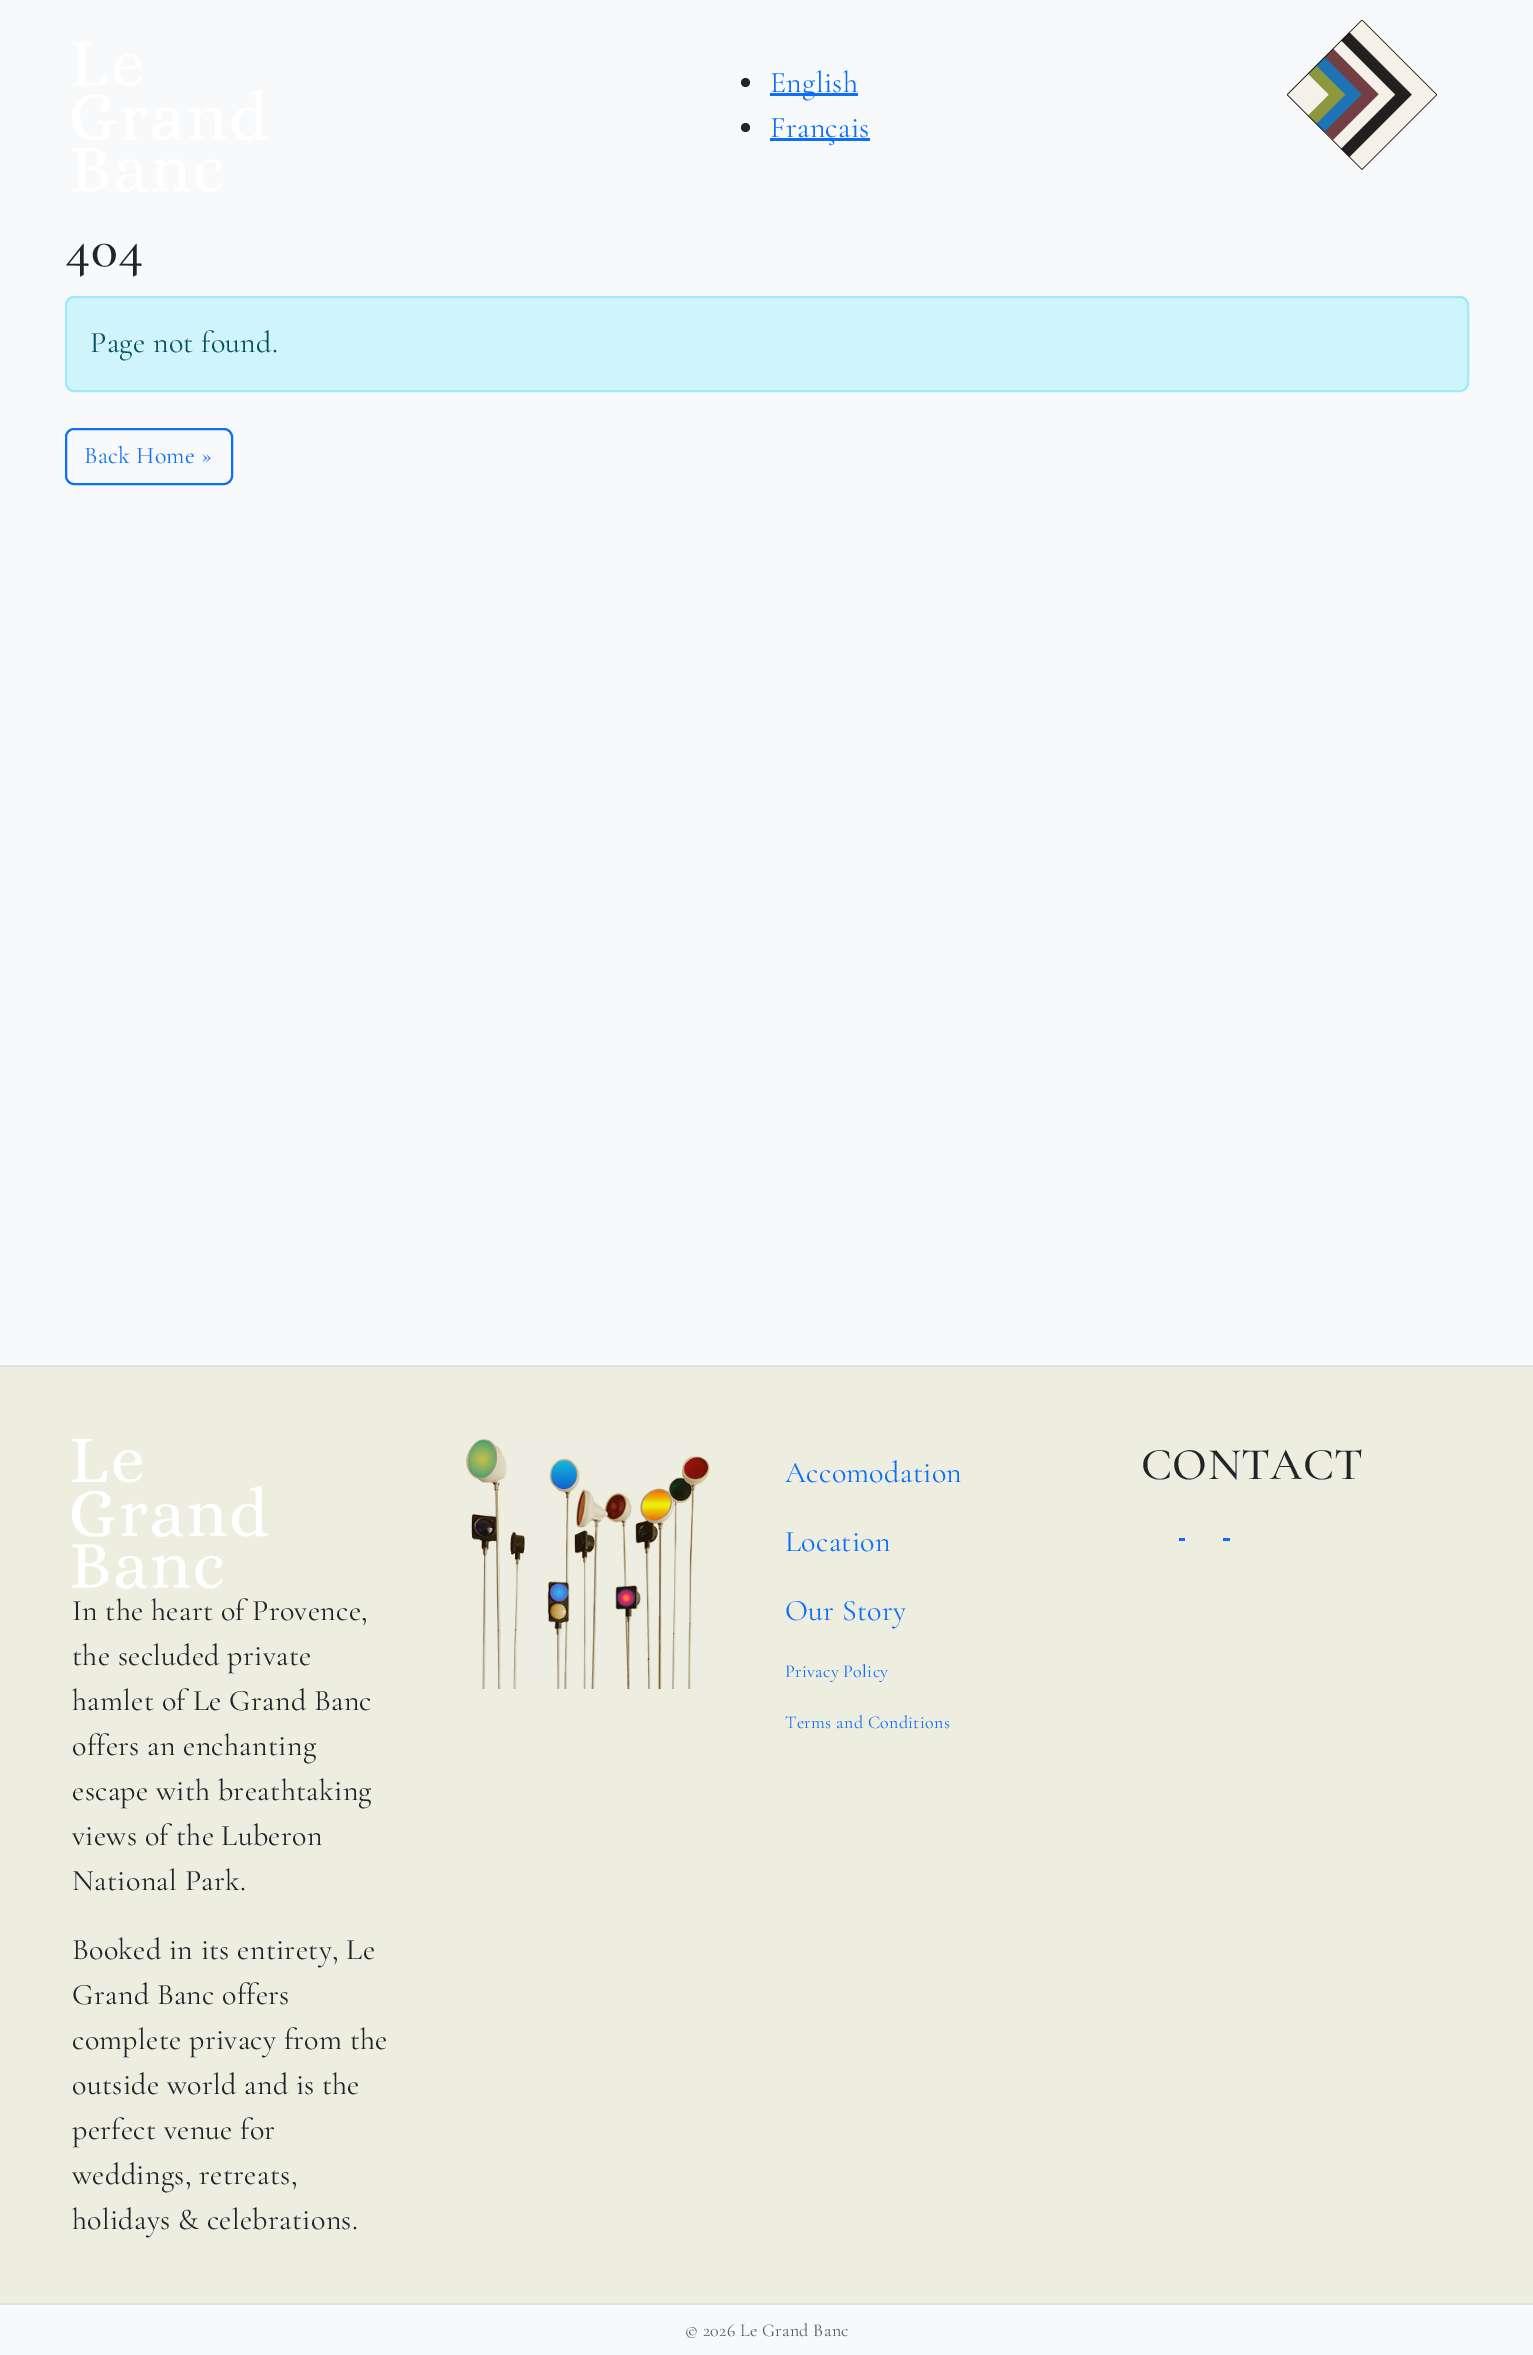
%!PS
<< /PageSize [1533 2355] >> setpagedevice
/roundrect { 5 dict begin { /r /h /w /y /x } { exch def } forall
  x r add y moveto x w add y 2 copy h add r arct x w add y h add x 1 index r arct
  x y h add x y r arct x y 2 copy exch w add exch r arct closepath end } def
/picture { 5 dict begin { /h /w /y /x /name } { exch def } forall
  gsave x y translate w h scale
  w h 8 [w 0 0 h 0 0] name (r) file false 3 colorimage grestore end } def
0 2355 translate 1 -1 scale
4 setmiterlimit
0.973 0.976 0.98 setrgbcolor
0 0 1533 2355 rectfill
(img1.rgb) 72 42 196 150 picture
0.129 0.145 0.161 setrgbcolor
newpath 745.5 82.5 4.5 0 360 arc closepath fill
0.051 0.431 0.992 setrgbcolor
770 93 88 3 rectfill
/CormorantGaramond-Regular [30 0 0 -30 0 0] selectfont
770 92 moveto 0.3 0 (English) ashow
0.129 0.145 0.161 setrgbcolor
newpath 745.5 127.5 4.5 0 360 arc closepath fill
0.051 0.431 0.992 setrgbcolor
770 138 100 3 rectfill
770 137 moveto 0.3 0 (Français) ashow
(img2.rgb) 1287 20 150 150 picture
/CormorantGaramond-Medium [56 0 0 -56 0 0] selectfont
0.129 0.145 0.161 setrgbcolor
65 266 moveto 0.3 0 (404) ashow
0.812 0.957 0.988 setrgbcolor
66 297 1402 94 8 roundrect gsave fill grestore
0.62 0.918 0.976 setrgbcolor
2 setlinewidth
stroke
/CormorantGaramond-Regular [30 0 0 -30 0 0] selectfont
0.02 0.318 0.376 setrgbcolor
90 352 moveto 0.3 0 (Page not found.) ashow
0.051 0.431 0.992 setrgbcolor
66 429 166 55 8 roundrect stroke
/CormorantGaramond-Regular [24 0 0 -24 0 0] selectfont
84 463 moveto 0.3 0 (Back Home ») ashow
0.929 0.929 0.878 setrgbcolor
0 1367 1533 936 rectfill
0.871 0.886 0.902 setrgbcolor
0 1365 1533 2 rectfill
(img3.rgb) 72 1439 197 150 picture
/CormorantGaramond-Regular [30 0 0 -30 0 0] selectfont
0.129 0.145 0.161 setrgbcolor
72 1620 moveto 0.3 0 (In the heart of Provence,) ashow
72 1665 moveto 0.3 0 (the secluded private) ashow
72 1710 moveto 0.3 0 (hamlet of Le Grand Banc) ashow
72 1755 moveto 0.3 0 (offers an enchanting) ashow
72 1800 moveto 0.3 0 (escape with breathtaking) ashow
72 1845 moveto 0.3 0 (views of the Luberon) ashow
72 1890 moveto 0.3 0 (National Park.) ashow
72 1959 moveto 0.3 0 (Booked in its entirety, Le) ashow
72 2004 moveto 0.3 0 (Grand Banc offers) ashow
72 2049 moveto 0.3 0 (complete privacy from the) ashow
72 2094 moveto 0.3 0 (outside world and is the) ashow
72 2139 moveto 0.3 0 (perfect venue for) ashow
72 2184 moveto 0.3 0 (weddings, retreats,) ashow
72 2229 moveto 0.3 0 (holidays & celebrations.) ashow
(img4.rgb) 466 1439 244 250 picture
0.051 0.431 0.992 setrgbcolor
785 1482 moveto 0.3 0 (Accomodation) ashow
785 1551 moveto 0.3 0 (Location) ashow
785 1620 moveto 0.3 0 (Our Story) ashow
/CormorantGaramond-Regular [18 0 0 -18 0 0] selectfont
785 1677 moveto 0.3 0 (Privacy Policy) ashow
785 1728 moveto 0.3 0 (Terms and Conditions) ashow
/CormorantGaramond-Medium [45.5 0 0 -45.5 0 0] selectfont
0.129 0.145 0.161 setrgbcolor
1141 1479 moveto 0.3 0 (CONTACT) ashow
0.051 0.431 0.992 setrgbcolor
1179 1538 6 3 rectfill
1223 1538 7 3 rectfill
0.871 0.886 0.902 setrgbcolor
0 2303 1533 2 rectfill
/CormorantGaramond-Regular [18 0 0 -18 0 0] selectfont
0.341 0.353 0.365 setrgbcolor
685 2336 moveto 0.3 0 (© 2026 Le Grand Banc) ashow
showpage
